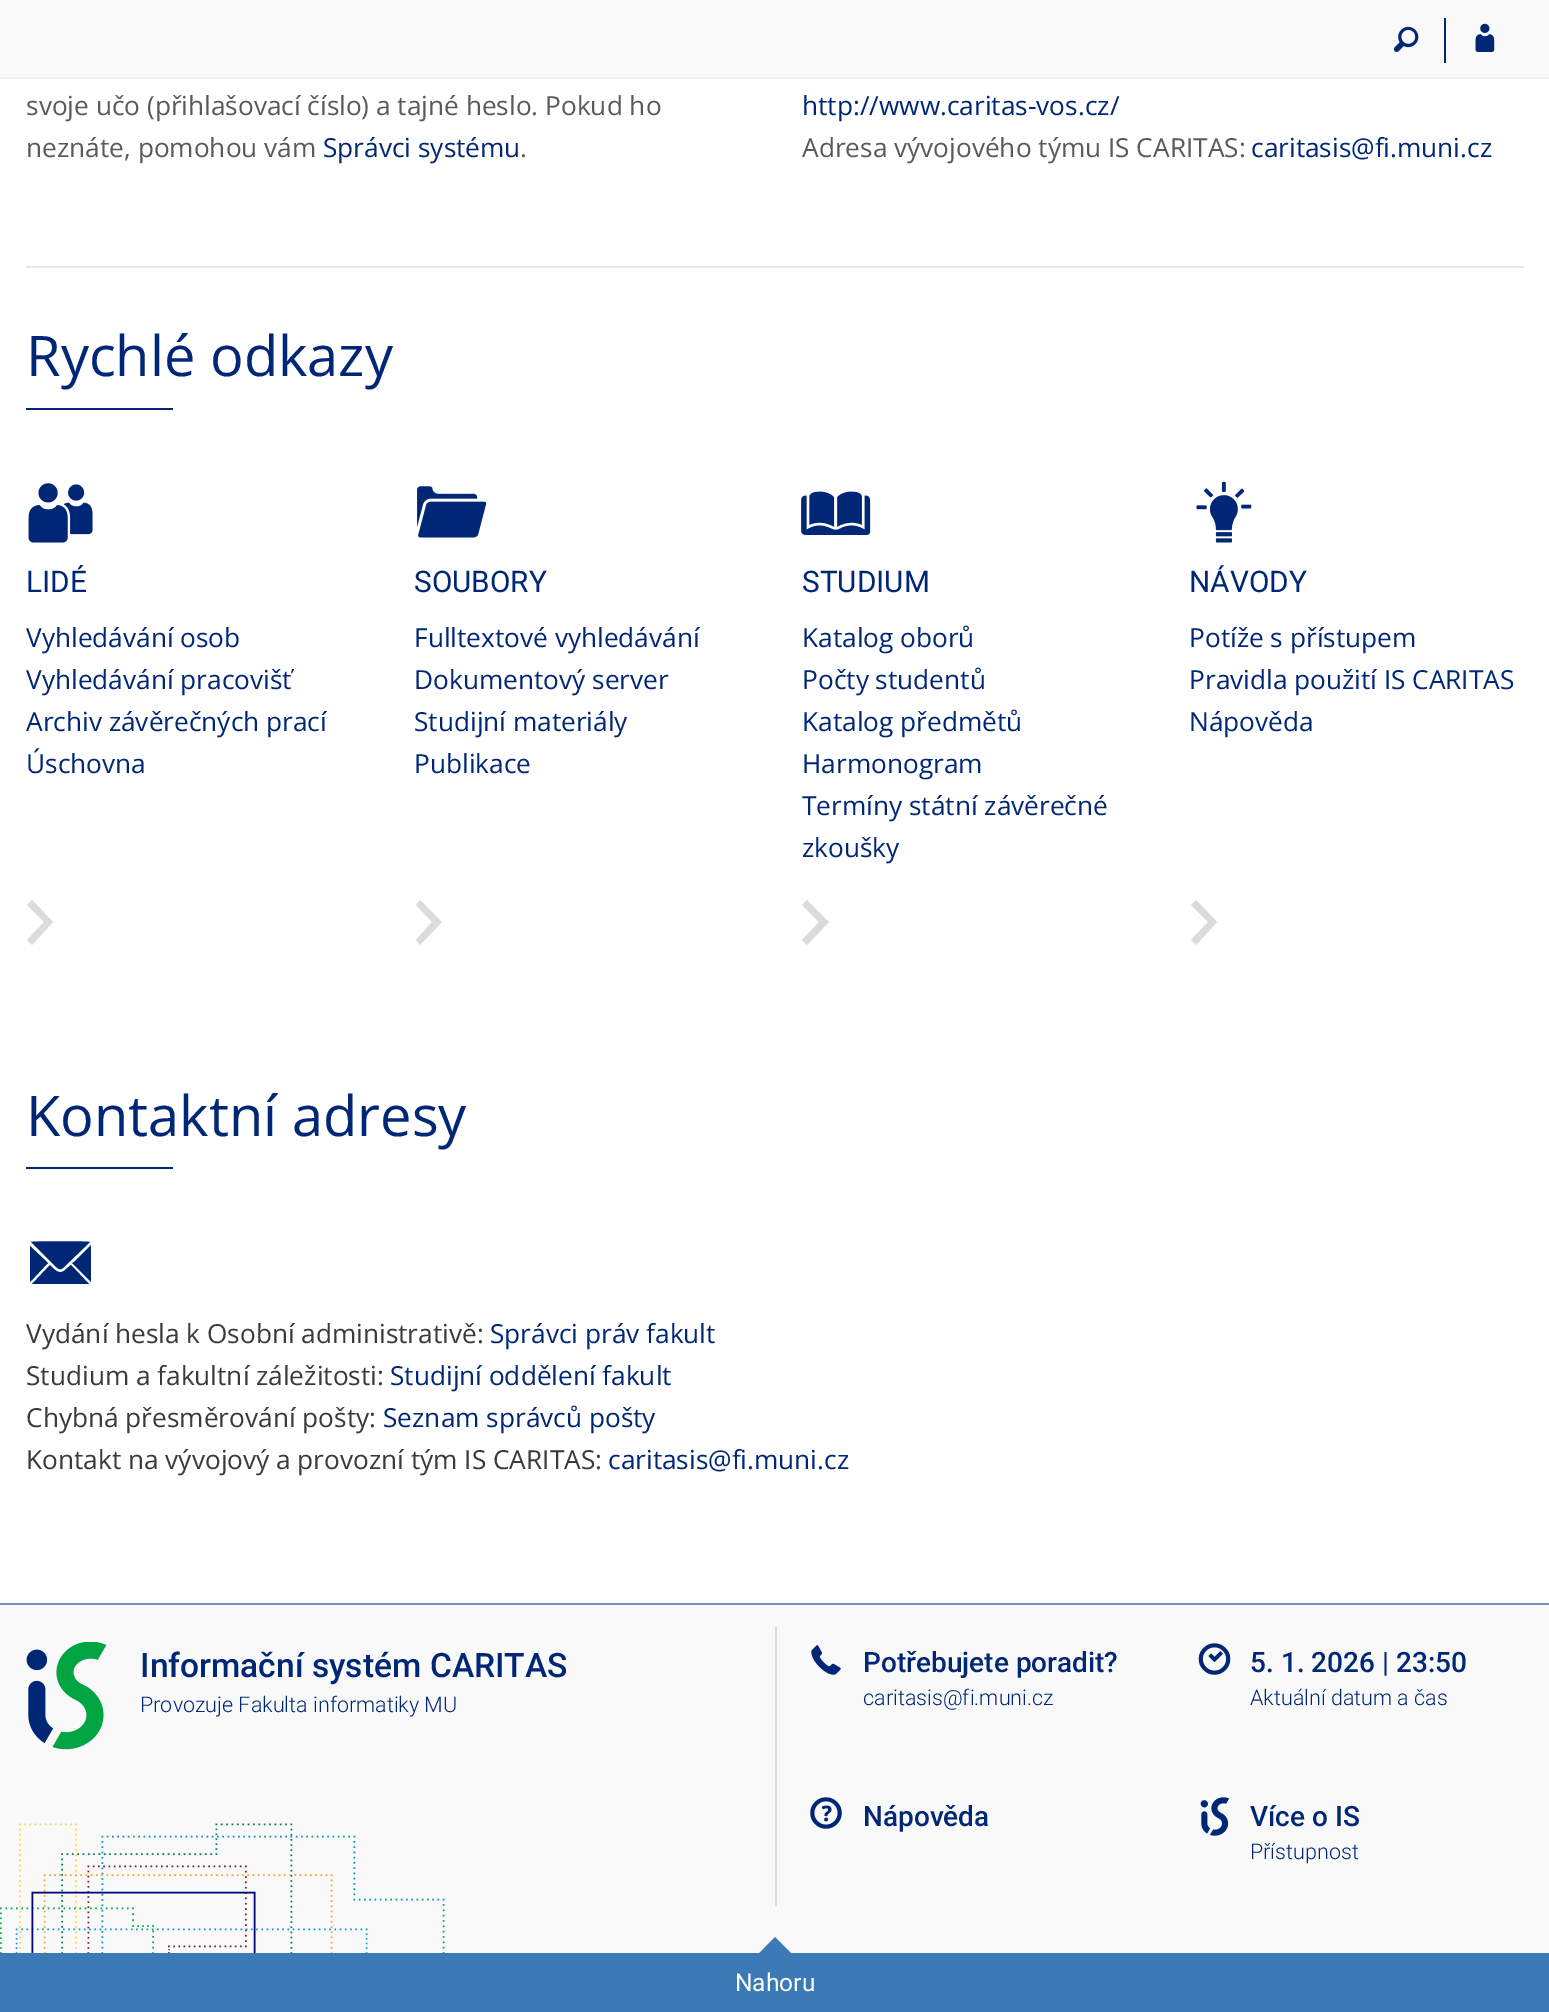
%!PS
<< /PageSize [1549 2012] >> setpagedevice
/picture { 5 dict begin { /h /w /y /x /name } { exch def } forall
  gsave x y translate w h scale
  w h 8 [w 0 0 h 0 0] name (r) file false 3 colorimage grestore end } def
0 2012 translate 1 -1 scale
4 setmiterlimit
1 setgray
0 0 1549 2012 rectfill
0.976 setgray
0 0 1549 77 rectfill
0.949 setgray
0 77 1549 2 rectfill
0 0.153 0.463 setrgbcolor
1444 18 2 45 rectfill
(img1.rgb) 1394 26 25 26 picture
(img2.rgb) 1475 23 20 29 picture
/OpenSans-Regular [26.25 0 0 -26.25 0 0] selectfont
0.353 setgray
26 115 moveto (svoje učo \(přihlašovací číslo\) a tajné heslo. Pokud ho) show
26 157 moveto (neznáte, pomohou vám) show
0 0.153 0.463 setrgbcolor
323 157 moveto (Správci systému) show
0.353 setgray
520 157 moveto (.) show
0 0.153 0.463 setrgbcolor
802 115 moveto (http://www.caritas-vos.cz/) show
0.353 setgray
802 157 moveto (Adresa vývojového týmu IS CARITAS:) show
0 0.153 0.463 setrgbcolor
1251 157 moveto (caritasis@fi.muni.cz) show
0.91 setgray
26 266 1498 2 rectfill
/OpenSans-Regular [56 0 0 -56 0 0] selectfont
0 0.153 0.463 setrgbcolor
26 376 moveto (Rychlé odkazy) show
26 408 147 2 rectfill
(img3.rgb) 28 483 65 60 picture
/Roboto-Regular [29.75 0 0 -29.75 0 0] selectfont
26 592 moveto (LIDÉ) show
/OpenSans-Regular [26.25 0 0 -26.25 0 0] selectfont
26 647 moveto (Vyhledávání osob) show
26 689 moveto (Vyhledávání pracovišť) show
26 731 moveto (Archiv závěrečných prací) show
26 773 moveto (Úschovna) show
0.859 setgray
newpath 53 922 moveto 32 900 lineto 27 905 lineto 44 922 lineto 27 940 lineto 32 945 lineto closepath fill
(img4.rgb) 417 486 70 52 picture
/Roboto-Regular [29.75 0 0 -29.75 0 0] selectfont
0 0.153 0.463 setrgbcolor
414 592 moveto (SOUBORY) show
/OpenSans-Regular [26.25 0 0 -26.25 0 0] selectfont
414 647 moveto (Fulltextové vyhledávání) show
414 689 moveto (Dokumentový server) show
414 731 moveto (Studijní materiály) show
414 773 moveto (Publikace) show
0.859 setgray
newpath 442 922 moveto 420 900 lineto 416 905 lineto 432 922 lineto 416 940 lineto 420 945 lineto closepath fill
(img5.rgb) 801 491 70 44 picture
/Roboto-Regular [29.75 0 0 -29.75 0 0] selectfont
0 0.153 0.463 setrgbcolor
802 592 moveto (STUDIUM) show
/OpenSans-Regular [26.25 0 0 -26.25 0 0] selectfont
802 647 moveto (Katalog oborů) show
802 689 moveto (Počty studentů) show
802 731 moveto (Katalog předmětů) show
802 773 moveto (Harmonogram) show
802 815 moveto (Termíny státní závěrečné) show
802 857 moveto (zkoušky) show
0.859 setgray
newpath 829 922 moveto 807 900 lineto 802 905 lineto 819 922 lineto 802 940 lineto 807 945 lineto closepath fill
(img6.rgb) 1196 481 56 62 picture
/Roboto-Regular [29.75 0 0 -29.75 0 0] selectfont
0 0.153 0.463 setrgbcolor
1189 592 moveto (NÁVODY) show
/OpenSans-Regular [26.25 0 0 -26.25 0 0] selectfont
1189 647 moveto (Potíže s přístupem) show
1189 689 moveto (Pravidla použití IS CARITAS) show
1189 731 moveto (Nápověda) show
0.859 setgray
newpath 1217 922 moveto 1196 900 lineto 1191 905 lineto 1208 922 lineto 1191 940 lineto 1196 945 lineto closepath fill
/OpenSans-Regular [56 0 0 -56 0 0] selectfont
0 0.153 0.463 setrgbcolor
26 1136 moveto (Kontaktní adresy) show
26 1167 147 2 rectfill
newpath 63 1268 moveto 90 1242 lineto 88 1241 33 1241 31 1242 curveto 53 1264 lineto 55 1265 59 1272 63 1268 curveto closepath 30 1246 moveto 30 1282 lineto 48 1263 lineto closepath 74 1262 moveto 72 1263 lineto 91 1282 lineto 91 1245 lineto closepath 65 1270 moveto 59 1276 53 1268 50 1265 curveto 32 1284 lineto 89 1284 lineto 71 1265 lineto closepath fill
/OpenSans-Regular [26.25 0 0 -26.25 0 0] selectfont
0.227 setgray
26 1343 moveto (Vydání hesla k Osobní administrativě:) show
0 0.153 0.463 setrgbcolor
490 1343 moveto (Správci práv fakult) show
0.227 setgray
26 1385 moveto (Studium a fakultní záležitosti:) show
0 0.153 0.463 setrgbcolor
390 1385 moveto (Studijní oddělení fakult) show
0.227 setgray
26 1427 moveto (Chybná přesměrování pošty:) show
0 0.153 0.463 setrgbcolor
383 1427 moveto (Seznam správců pošty) show
0.227 setgray
26 1469 moveto (Kontakt na vývojový a provozní tým IS CARITAS:) show
0 0.153 0.463 setrgbcolor
608 1469 moveto (caritasis@fi.muni.cz) show
0.976 setgray
0 1605 1549 348 rectfill
0.49 0.565 0.722 setrgbcolor
0 1603 1549 2 rectfill
(img7.rgb) 0 1823 445 130 picture
(img8.rgb) 26 1642 81 108 picture
/Roboto-Medium [33.6 0 0 -33.6 0 0] selectfont
0 0.153 0.463 setrgbcolor
140 1677 moveto (Informační systém CARITAS) show
/Roboto-Light [21.5 0 0 -21.5 0 0] selectfont
140 1712 moveto (Provozuje Fakulta informatiky MU) show
0.867 setgray
775 1626 2 280 rectfill
(img9.rgb) 811 1645 30 30 picture
/Roboto-Medium [28 0 0 -28 0 0] selectfont
0 0.153 0.463 setrgbcolor
863 1672 moveto (Potřebujete poradit?) show
/Roboto-Light [21.5 0 0 -21.5 0 0] selectfont
863 1705 moveto (caritasis@fi.muni.cz) show
(img10.rgb) 810 1797 32 32 picture
/Roboto-Medium [28 0 0 -28 0 0] selectfont
863 1826 moveto (Nápověda) show
(img11.rgb) 1198 1643 33 32 picture
1250 1672 moveto (5. 1. 2026 | 23:50) show
/Roboto-Light [21.5 0 0 -21.5 0 0] selectfont
1250 1705 moveto (Aktuální datum a čas) show
(img12.rgb) 1200 1797 30 39 picture
/Roboto-Medium [28 0 0 -28 0 0] selectfont
1250 1826 moveto (Více o IS) show
/Roboto-Light [21.5 0 0 -21.5 0 0] selectfont
1250 1859 moveto (Přístupnost) show
0.235 0.478 0.718 setrgbcolor
0 1953 1549 59 rectfill
newpath 794.5 1956.5 moveto 756 1956.5 lineto 775 1937 lineto closepath fill
/Roboto-Regular [24.5 0 0 -24.5 0 0] selectfont
1 setgray
735 1991 moveto (Nahoru) show
showpage
